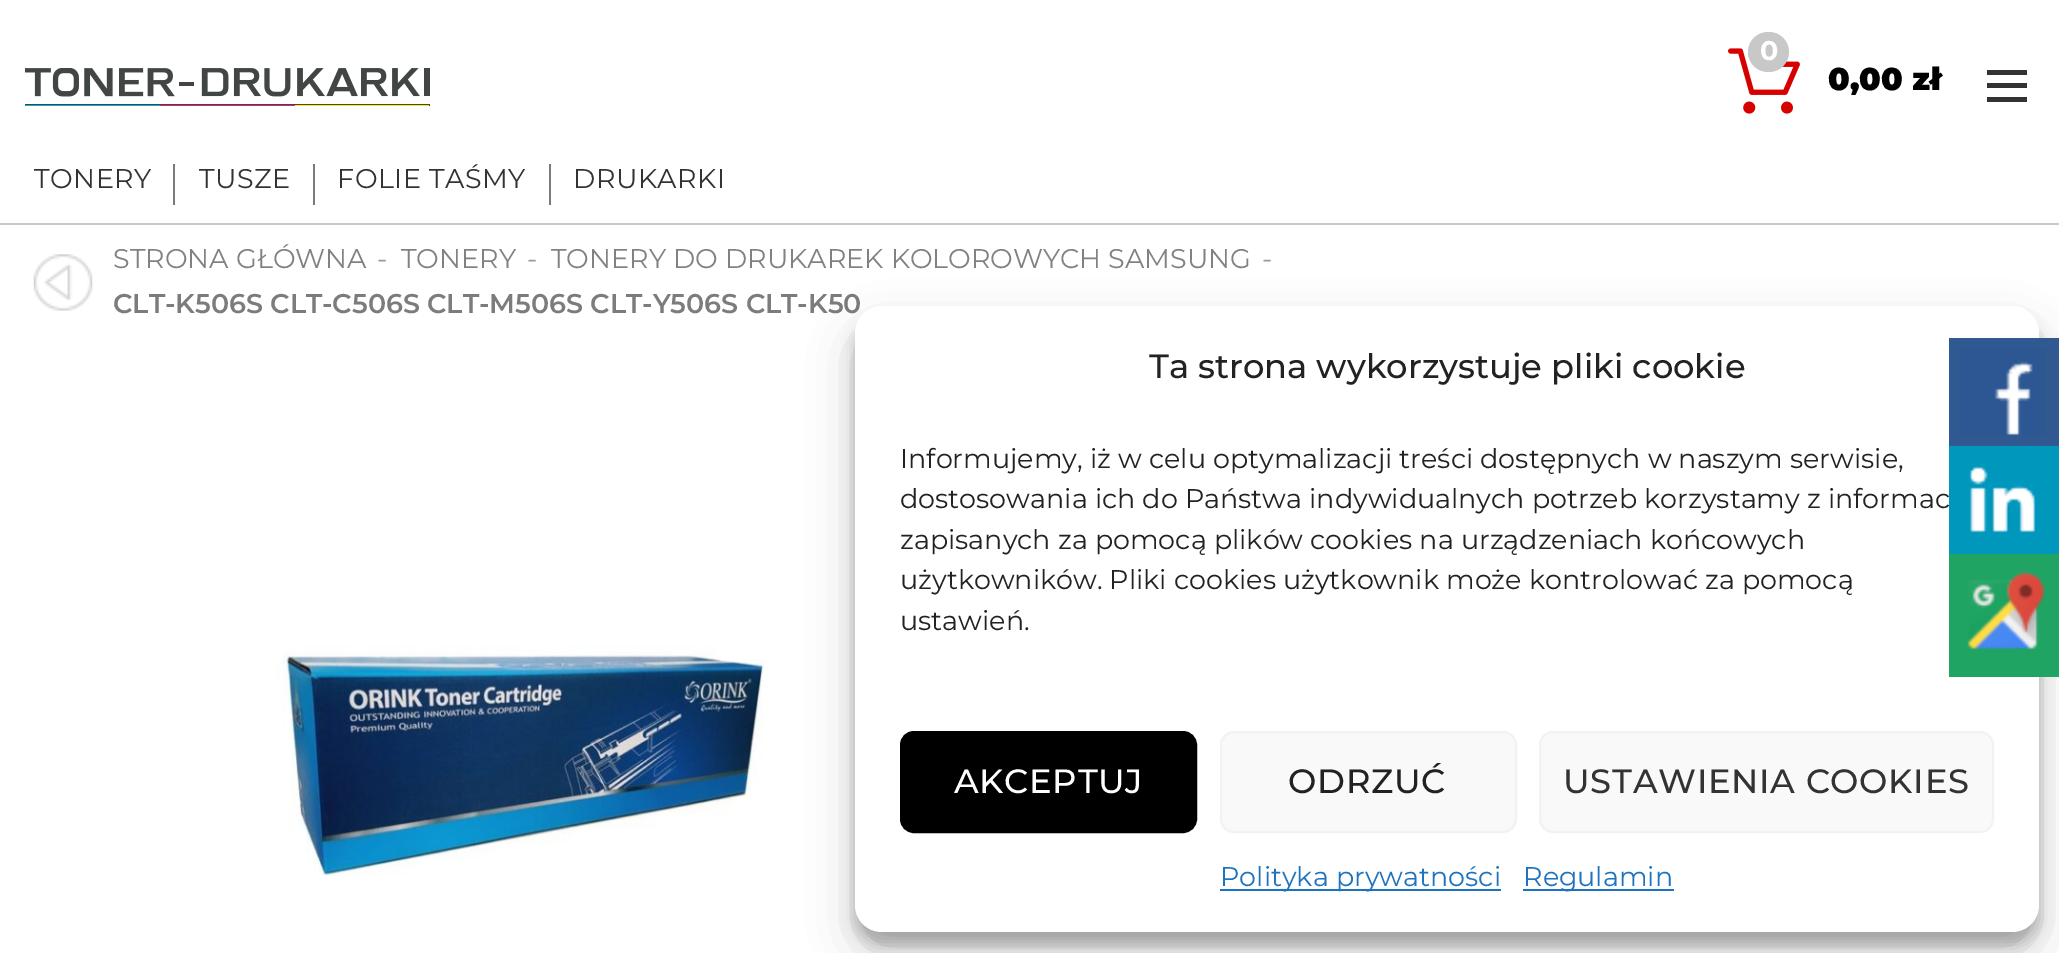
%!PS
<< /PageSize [2059 953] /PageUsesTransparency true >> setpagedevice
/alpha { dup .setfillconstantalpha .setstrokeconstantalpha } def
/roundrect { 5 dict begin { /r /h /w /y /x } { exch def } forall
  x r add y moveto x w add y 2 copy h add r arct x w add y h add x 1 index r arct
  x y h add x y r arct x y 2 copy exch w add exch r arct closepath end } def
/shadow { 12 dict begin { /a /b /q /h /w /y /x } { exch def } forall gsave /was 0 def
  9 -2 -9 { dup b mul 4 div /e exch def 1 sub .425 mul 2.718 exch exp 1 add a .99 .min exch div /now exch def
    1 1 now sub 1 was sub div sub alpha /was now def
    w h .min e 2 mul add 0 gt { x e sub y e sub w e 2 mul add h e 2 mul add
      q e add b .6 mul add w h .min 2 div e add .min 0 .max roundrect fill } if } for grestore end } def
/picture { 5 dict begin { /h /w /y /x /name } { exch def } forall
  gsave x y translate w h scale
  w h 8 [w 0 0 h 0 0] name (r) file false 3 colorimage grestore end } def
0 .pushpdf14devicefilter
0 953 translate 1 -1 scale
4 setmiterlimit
1 setgray
0 0 2059 953 rectfill
(img1.rgb) 25 68 405 38 picture
(img2.rgb) 1728 48 72 66 picture
0.784 setgray
1748 32 41 40 20 roundrect fill
/Montserrat-Bold [27 0 0 -27 0 0] selectfont
1 setgray
1760 60 moveto (0) show
/Montserrat-Black [31.5 0 0 -31.5 0 0] selectfont
0 setgray
1828 90 moveto (0,00 zł) show
0.2 setgray
1987 83 40 5 rectfill
1987 70 40 5 rectfill
1987 97 40 5 rectfill
0.784 setgray
0 223 2059 2 rectfill
/Montserrat-Regular [27 0 0 -27 0 0] selectfont
0.2 setgray
34 188 moveto 0.5 0 (TONERY) ashow
0.482 setgray
173 164 2 41 rectfill
0.2 setgray
199 188 moveto 0.5 0 (TUSZE) ashow
0.482 setgray
313 164 2 41 rectfill
0.2 setgray
337 188 moveto 0.5 0 (FOLIE TAŚMY) ashow
0.482 setgray
549 164 2 41 rectfill
0.2 setgray
573 188 moveto 0.5 0 (DRUKARKI) ashow
(img3.rgb) 33 254 60 57 picture
0.514 0.502 0.502 setrgbcolor
113 268 moveto (STRONA GŁÓWNA) show
0.612 0.604 0.604 setrgbcolor
377 268 moveto (-) show
0.514 0.502 0.502 setrgbcolor
401 268 moveto (TONERY) show
0.612 0.604 0.604 setrgbcolor
527 268 moveto (-) show
0.514 0.502 0.502 setrgbcolor
551 268 moveto (TONERY DO DRUKAREK KOLOROWYCH SAMSUNG) show
0.612 0.604 0.604 setrgbcolor
1262 268 moveto (-) show
/Montserrat-SemiBold [27 0 0 -27 0 0] selectfont
0.486 setgray
113 313 moveto (CLT-K506S CLT-C506S CLT-M506S CLT-Y506S CLT-K50) show
(img4.rgb) 275 645 489 231 picture
0 setgray
855 320 1184 625 27 7 0.23 shadow
855 329 1184 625 27 22.5 0.19 shadow
1 setgray
855 306 1184 626 27 roundrect fill
/Montserrat-Medium [33.75 0 0 -33.75 0 0] selectfont
0.133 setgray
1149 378 moveto (Ta strona wykorzystuje pliki cookie) show
/Montserrat-Regular [27 0 0 -27 0 0] selectfont
900 468 moveto (Informujemy, iż w celu optymalizacji treści dostępnych w naszym serwisie,) show
900 508 moveto (dostosowania ich do Państwa indywidualnych potrzeb korzystamy z informac) show
900 549 moveto (zapisanych za pomocą plików cookies na urządzeniach końcowych) show
900 589 moveto (użytkowników. Pliki cookies użytkownik może kontrolować za pomocą) show
900 630 moveto (ustawień.) show
0 setgray
901 732 295 100 13 roundrect gsave fill grestore
2 setlinewidth
stroke
/Montserrat-Medium [33.75 0 0 -33.75 0 0] selectfont
1 setgray
954 793 moveto 0.7 0 (AKCEPTUJ) ashow
0.976 setgray
1221 732 295 100 13 roundrect gsave fill grestore
0.949 setgray
stroke
0.133 setgray
1288 793 moveto 0.7 0 (ODRZUĆ) ashow
0.976 setgray
1540 732 453 100 13 roundrect gsave fill grestore
0.949 setgray
stroke
0.2 setgray
1563 793 moveto 0.7 0 (USTAWIENIA COOKIES) ashow
0.118 0.451 0.745 setrgbcolor
1220 889 281 2 rectfill
/Montserrat-Regular [27 0 0 -27 0 0] selectfont
1220 886 moveto (Polityka prywatności) show
1523 889 151 2 rectfill
1523 886 moveto (Regulamin) show
0.188 0.345 0.569 setrgbcolor
1949 338 110 108 rectfill
(img5.rgb) 1960 349 85 86 picture
0 0.592 0.741 setrgbcolor
1949 446 110 108 rectfill
(img6.rgb) 1969 466 67 67 picture
0.125 0.643 0.392 setrgbcolor
1949 554 110 123 rectfill
(img7.rgb) 1967 571 79 79 picture
.poppdf14devicefilter showpage
